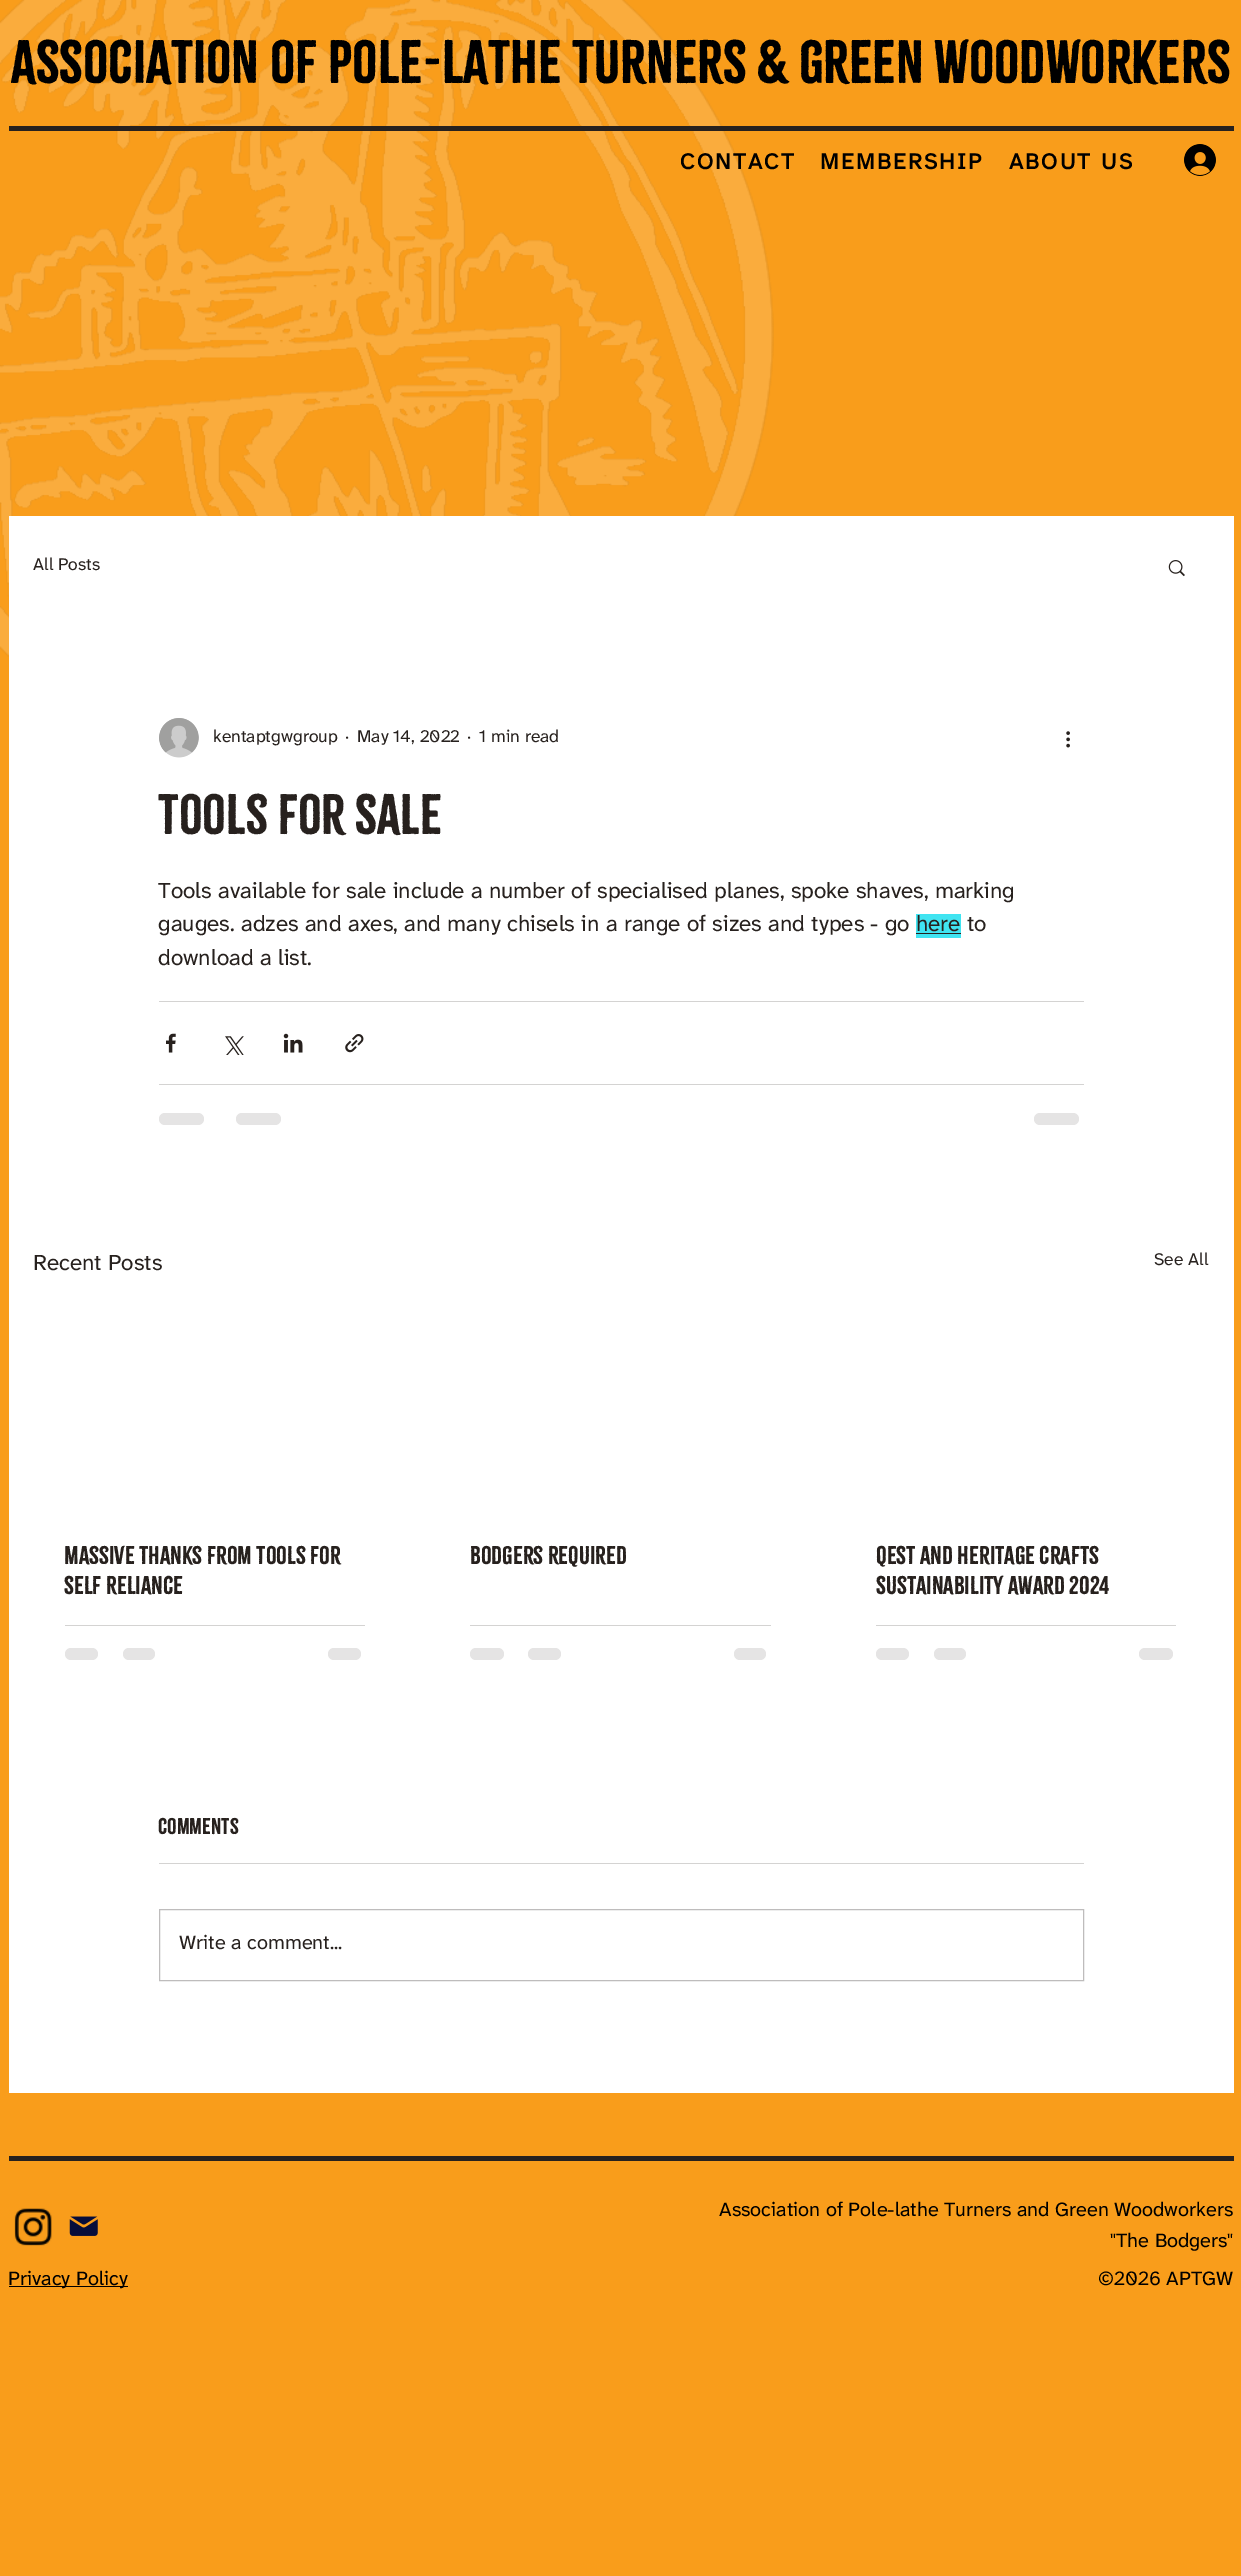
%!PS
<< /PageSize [1241 2576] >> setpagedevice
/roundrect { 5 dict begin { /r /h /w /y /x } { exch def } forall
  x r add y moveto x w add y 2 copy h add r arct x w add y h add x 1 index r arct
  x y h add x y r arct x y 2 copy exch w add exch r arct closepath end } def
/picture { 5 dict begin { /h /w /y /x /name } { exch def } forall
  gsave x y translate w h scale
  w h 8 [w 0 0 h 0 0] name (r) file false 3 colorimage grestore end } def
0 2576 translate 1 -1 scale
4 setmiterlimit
0.976 0.616 0.106 setrgbcolor
0 0 1241 2576 rectfill
(img1.rgb) 0 0 774 657 picture
/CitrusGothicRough-Regular [53.75 0 0 -53.75 0 0] selectfont
0 setgray
11 83 moveto (ASSOCIATION OF POLE-LATHE TURNERS & GREEN WOODWORKERS) show
0.153 0.129 0.118 setrgbcolor
9 126 1225 5 rectfill
/AtkinsonHyperlegibleNext-Bold [22.5 0 0 -22.5 0 0] selectfont
0 setgray
680 169 moveto 2.25 0 (CONTACT) ashow
820 169 moveto 2.25 0 (MEMBERSHIP) ashow
1009 169 moveto 2.25 0 (ABOUT US) ashow
(img2.rgb) 1184 144 32 32 picture
1 setgray
9 516 1225 1577 rectfill
/AtkinsonHyperlegibleNext-Regular [17.5 0 0 -17.5 0 0] selectfont
0.153 0.129 0.118 setrgbcolor
33 570 moveto (All Posts) show
(img3.rgb) 1168 560 17 17 picture
(img4.rgb) 159 718 40 40 picture
213 742 moveto (kentaptgwgroup) show
345 742 moveto (·) show
357 742 moveto (May 14, 2022) show
467 742 moveto (·) show
479 742 moveto (1 min read) show
(img5.rgb) 1066 731 4 17 picture
/CitrusGothicRough-Regular [50 0 0 -50 0 0] selectfont
158 834 moveto (Tools for Sale) show
/AtkinsonHyperlegibleNext-Regular [22.5 0 0 -22.5 0 0] selectfont
158 898 moveto (Tools available for sale include a number of specialised planes, spoke shaves, marking) show
158 931 moveto (gauges. adzes and axes, and many chisels in a range of sizes and types - go) show
0.251 0.894 0.945 setrgbcolor
916 914 45 24 rectfill
0.153 0.129 0.118 setrgbcolor
916 931 moveto (here to) show
916 933 45 1 rectfill
158 965 moveto (download a list.) show
0.831 0.827 0.824 setrgbcolor
159 1001 925 1 rectfill
(img6.rgb) 166 1033 10 20 picture
(img7.rgb) 225 1036 19 19 picture
(img8.rgb) 283 1033 20 20 picture
(img9.rgb) 345 1034 19 19 picture
159 1084 925 1 rectfill
0.898 0.894 0.894 setrgbcolor
159 1113 45 12 6 roundrect fill
236 1113 45 12 6 roundrect fill
1034 1113 45 12 6 roundrect fill
0.153 0.129 0.118 setrgbcolor
33 1270 moveto (Recent Posts) show
/AtkinsonHyperlegibleNext-Regular [17.5 0 0 -17.5 0 0] selectfont
1154 1265 moveto (See All) show
/CitrusGothicRough-Regular [22.5 0 0 -22.5 0 0] selectfont
64 1564 moveto (Massive thanks from Tools for) show
64 1594 moveto (Self Reliance) show
0.831 0.827 0.824 setrgbcolor
65 1625 300 1 rectfill
0.898 0.894 0.894 setrgbcolor
65 1648 33 12 6 roundrect fill
123 1648 32 12 6 roundrect fill
328 1648 33 12 6 roundrect fill
0.153 0.129 0.118 setrgbcolor
470 1564 moveto (Bodgers Required) show
0.831 0.827 0.824 setrgbcolor
470 1625 301 1 rectfill
0.898 0.894 0.894 setrgbcolor
470 1648 34 12 6 roundrect fill
528 1648 33 12 6 roundrect fill
734 1648 32 12 6 roundrect fill
0.153 0.129 0.118 setrgbcolor
876 1564 moveto (QEST and Heritage Crafts) show
876 1594 moveto (Sustainability Award 2024) show
0.831 0.827 0.824 setrgbcolor
876 1625 300 1 rectfill
0.898 0.894 0.894 setrgbcolor
876 1648 33 12 6 roundrect fill
934 1648 32 12 6 roundrect fill
1139 1648 34 12 6 roundrect fill
/CitrusGothicRough-Regular [20 0 0 -20 0 0] selectfont
0.153 0.129 0.118 setrgbcolor
158 1834 moveto (Comments) show
0.831 0.827 0.824 setrgbcolor
159 1863 925 1 rectfill
0.745 0.737 0.737 setrgbcolor
159.5 1909.5 924 71 rectstroke
/AtkinsonHyperlegibleNext-Regular [20 0 0 -20 0 0] selectfont
0.153 0.129 0.118 setrgbcolor
179 1949 moveto (Write a comment...) show
9 2156 1225 5 rectfill
(img10.rgb) 14 2208 38 38 picture
(img11.rgb) 69 2216 29 20 picture
0 setgray
719 2216 moveto (Association of Pole-lathe Turners and Green Woodworkers) show
1110 2247 moveto ("The Bodgers") show
9 2286 119 1 rectfill
8 2285 moveto (Privacy Policy) show
1098 2285 moveto (©2026 APTGW) show
showpage
